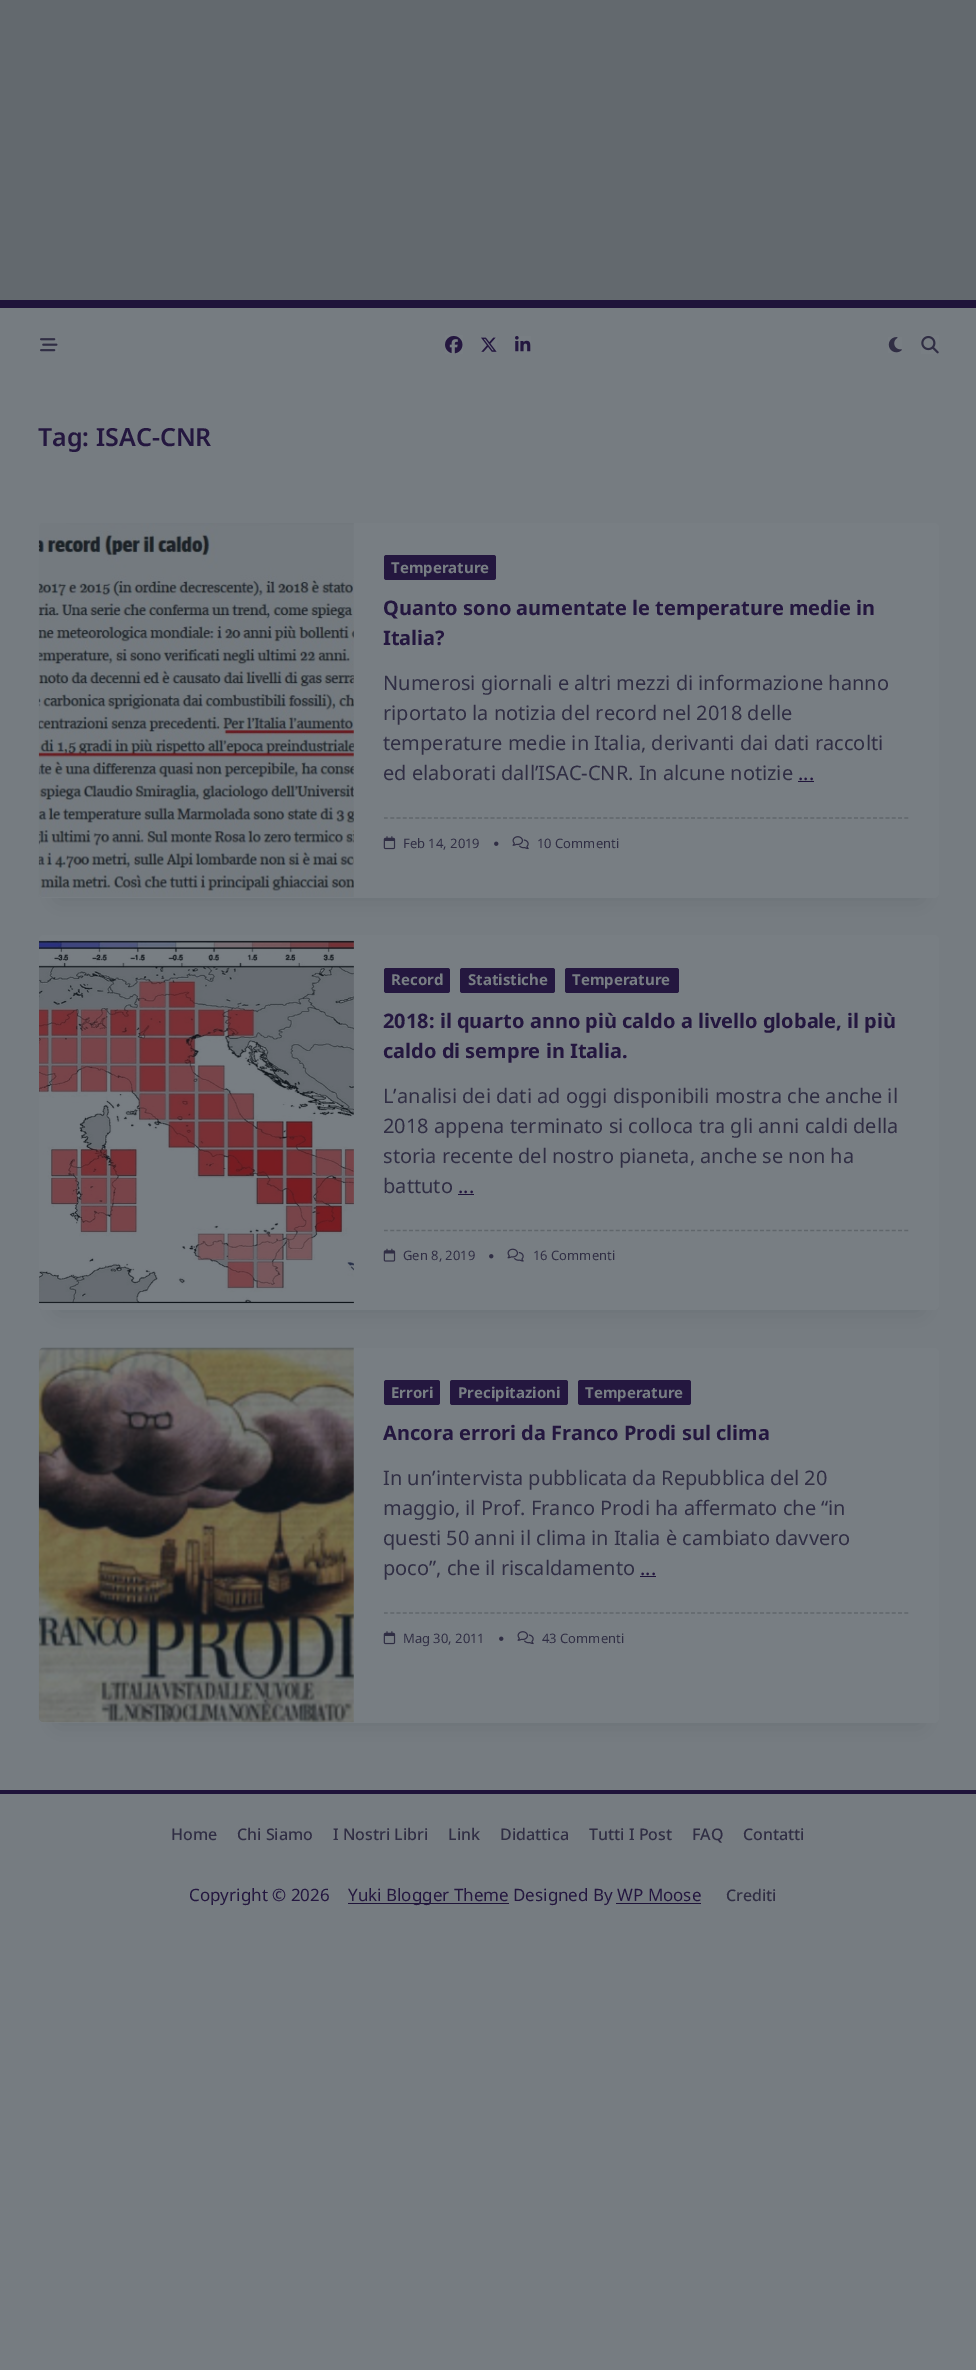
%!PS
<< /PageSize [976 2370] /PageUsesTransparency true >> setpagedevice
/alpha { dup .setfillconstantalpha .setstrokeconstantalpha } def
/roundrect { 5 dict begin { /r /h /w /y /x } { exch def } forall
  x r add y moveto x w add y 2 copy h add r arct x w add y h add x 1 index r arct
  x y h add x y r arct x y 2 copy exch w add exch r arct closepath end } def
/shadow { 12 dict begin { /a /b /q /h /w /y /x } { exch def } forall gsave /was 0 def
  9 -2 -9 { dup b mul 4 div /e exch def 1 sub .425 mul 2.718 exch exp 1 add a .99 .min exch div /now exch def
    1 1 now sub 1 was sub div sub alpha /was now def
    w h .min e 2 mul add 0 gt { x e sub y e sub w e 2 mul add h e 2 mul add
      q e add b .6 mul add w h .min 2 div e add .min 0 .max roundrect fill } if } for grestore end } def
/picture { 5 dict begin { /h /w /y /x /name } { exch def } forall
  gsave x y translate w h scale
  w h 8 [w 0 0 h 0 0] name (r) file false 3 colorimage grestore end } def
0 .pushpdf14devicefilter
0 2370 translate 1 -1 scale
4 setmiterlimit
0.463 0.486 0.506 setrgbcolor
0 0 976 2370 rectfill
0.388 0.412 0.431 setrgbcolor
0 0 976 300 rectfill
0.122 0.078 0.227 setrgbcolor
0 300 976 8 rectfill
(img1.rgb) 40 338 18 14 picture
(img2.rgb) 445 335 18 19 picture
(img3.rgb) 481 337 16 15 picture
(img4.rgb) 515 336 16 16 picture
(img5.rgb) 888 337 14 16 picture
(img6.rgb) 921 335 18 19 picture
/NotoSans-SemiBold [25 0 0 -25 0 0] selectfont
0.141 0.09 0.247 setrgbcolor
38 446 moveto (Tag: ISAC-CNR) show
0.125 0.176 0.227 setrgbcolor
58 560 862 338 0 11 0.15 shadow
0.471 0.494 0.514 setrgbcolor
39 523 900 375 5 roundrect fill
(img7.rgb) 38 523 316 374 picture
0.141 0.09 0.247 setrgbcolor
384 555 112 25 2.5 roundrect fill
/NotoSans-Bold [15 0 0 -15 0 0] selectfont
0.471 0.494 0.514 setrgbcolor
391 573 moveto (Temperature) show
/NotoSans-Bold [20 0 0 -20 0 0] selectfont
0.141 0.09 0.247 setrgbcolor
383 615 moveto (Quanto sono aumentate le temperature medie in) show
383 645 moveto (Italia?) show
/NotoSans-Regular [20 0 0 -20 0 0] selectfont
0.188 0.18 0.267 setrgbcolor
383 690 moveto (Numerosi giornali e altri mezzi di informazione hanno) show
383 720 moveto (riportato la notizia del record nel 2018 delle) show
383 750 moveto (temperature medie in Italia, derivanti dai dati raccolti) show
383 780 moveto (ed elaborati dall’ISAC-CNR. In alcune notizie) show
0.141 0.09 0.247 setrgbcolor
798 780 moveto (...) show
0.122 0.078 0.227 setrgbcolor
798 781 16 1 rectfill
0.376 0.4 0.42 setrgbcolor
1.2 setlinewidth
[3.75 2.52] 0 setdash
newpath 384 818 moveto 909 818 lineto stroke
(img8.rgb) 383 836 13 14 picture
/NotoSans-Regular [13 0 0 -13 0 0] selectfont
0.188 0.18 0.267 setrgbcolor
403 848 moveto (Feb 14, 2019) show
(img9.rgb) 494 841 5 5 picture
(img10.rgb) 512 836 17 14 picture
537 848 moveto (10 Commenti) show
0.125 0.176 0.227 setrgbcolor
58 973 862 337 0 11 0.15 shadow
0.471 0.494 0.514 setrgbcolor
39 935 900 375 5 roundrect fill
(img11.rgb) 39 940 315 364 picture
0.141 0.09 0.247 setrgbcolor
384 968 66 25 2.5 roundrect fill
/NotoSans-Bold [15 0 0 -15 0 0] selectfont
0.471 0.494 0.514 setrgbcolor
391 985 moveto (Record) show
0.141 0.09 0.247 setrgbcolor
460 968 95 25 2.5 roundrect fill
0.471 0.494 0.514 setrgbcolor
468 985 moveto (Statistiche) show
0.141 0.09 0.247 setrgbcolor
565 968 114 25 2.5 roundrect fill
0.471 0.494 0.514 setrgbcolor
572 985 moveto (Temperature) show
/NotoSans-Bold [20 0 0 -20 0 0] selectfont
0.141 0.09 0.247 setrgbcolor
383 1028 moveto (2018: il quarto anno più caldo a livello globale, il più) show
383 1058 moveto (caldo di sempre in Italia.) show
/NotoSans-Regular [20 0 0 -20 0 0] selectfont
0.188 0.18 0.267 setrgbcolor
383 1103 moveto (L’analisi dei dati ad oggi disponibili mostra che anche il) show
383 1133 moveto (2018 appena terminato si colloca tra gli anni caldi della) show
383 1163 moveto (storia recente del nostro pianeta, anche se non ha) show
383 1193 moveto (battuto) show
0.141 0.09 0.247 setrgbcolor
458 1193 moveto (...) show
0.122 0.078 0.227 setrgbcolor
458 1194 16 1 rectfill
0.376 0.4 0.42 setrgbcolor
newpath 384 1230.5 moveto 909 1230.5 lineto stroke
(img12.rgb) 383 1248 13 14 picture
/NotoSans-Regular [13 0 0 -13 0 0] selectfont
0.188 0.18 0.267 setrgbcolor
403 1260 moveto (Gen 8, 2019) show
(img13.rgb) 489 1254 5 5 picture
(img14.rgb) 507 1248 17 14 picture
533 1260 moveto (16 Commenti) show
0.125 0.176 0.227 setrgbcolor
58 1385 862 338 0 11 0.15 shadow
0.471 0.494 0.514 setrgbcolor
39 1348 900 375 5 roundrect fill
(img15.rgb) 38 1347 316 376 picture
0.141 0.09 0.247 setrgbcolor
384 1380 56 25 2.5 roundrect fill
/NotoSans-Bold [15 0 0 -15 0 0] selectfont
0.471 0.494 0.514 setrgbcolor
391 1398 moveto (Errori) show
0.141 0.09 0.247 setrgbcolor
450 1380 118 25 2.5 roundrect fill
0.471 0.494 0.514 setrgbcolor
458 1398 moveto (Precipitazioni) show
0.141 0.09 0.247 setrgbcolor
578 1380 113 25 2.5 roundrect fill
0.471 0.494 0.514 setrgbcolor
585 1398 moveto (Temperature) show
/NotoSans-Bold [20 0 0 -20 0 0] selectfont
0.141 0.09 0.247 setrgbcolor
383 1440 moveto (Ancora errori da Franco Prodi sul clima) show
/NotoSans-Regular [20 0 0 -20 0 0] selectfont
0.188 0.18 0.267 setrgbcolor
383 1485 moveto (In un’intervista pubblicata da Repubblica del 20) show
383 1515 moveto (maggio, il Prof. Franco Prodi ha affermato che “in) show
383 1545 moveto (questi 50 anni il clima in Italia è cambiato davvero) show
383 1575 moveto (poco”, che il riscaldamento) show
0.141 0.09 0.247 setrgbcolor
640 1575 moveto (...) show
0.122 0.078 0.227 setrgbcolor
640 1576 16 1 rectfill
0.376 0.4 0.42 setrgbcolor
newpath 384 1613 moveto 909 1613 lineto stroke
(img8.rgb) 383 1631 13 14 picture
/NotoSans-Regular [13 0 0 -13 0 0] selectfont
0.188 0.18 0.267 setrgbcolor
403 1643 moveto (Mag 30, 2011) show
(img9.rgb) 499 1636 5 5 picture
(img10.rgb) 517 1631 17 14 picture
542 1643 moveto (43 Commenti) show
0.122 0.078 0.227 setrgbcolor
0 1790 976 4 rectfill
/NotoSans-Medium [16 0 0 -16 0 0] selectfont
0.188 0.18 0.267 setrgbcolor
171 1840 moveto (Home) show
237 1840 moveto (Chi Siamo) show
333 1840 moveto (I Nostri Libri) show
448 1840 moveto (Link) show
500 1840 moveto (Didattica) show
589 1840 moveto (Tutti I Post) show
692 1840 moveto (FAQ) show
743 1840 moveto (Contatti) show
/NotoSans-Regular [17 0 0 -17 0 0] selectfont
0.141 0.09 0.247 setrgbcolor
189 1901 moveto (Copyright © 2026) show
0.122 0.078 0.227 setrgbcolor
348 1903 161 1 rectfill
0.141 0.09 0.247 setrgbcolor
348 1901 moveto (Yuki Blogger Theme) show
513 1901 moveto (Designed By) show
617 1901 moveto (WP Moose) show
0.122 0.078 0.227 setrgbcolor
616 1903 85 1 rectfill
/NotoSans-Medium [16 0 0 -16 0 0] selectfont
0.188 0.18 0.267 setrgbcolor
726 1901 moveto (Crediti) show
.poppdf14devicefilter showpage
